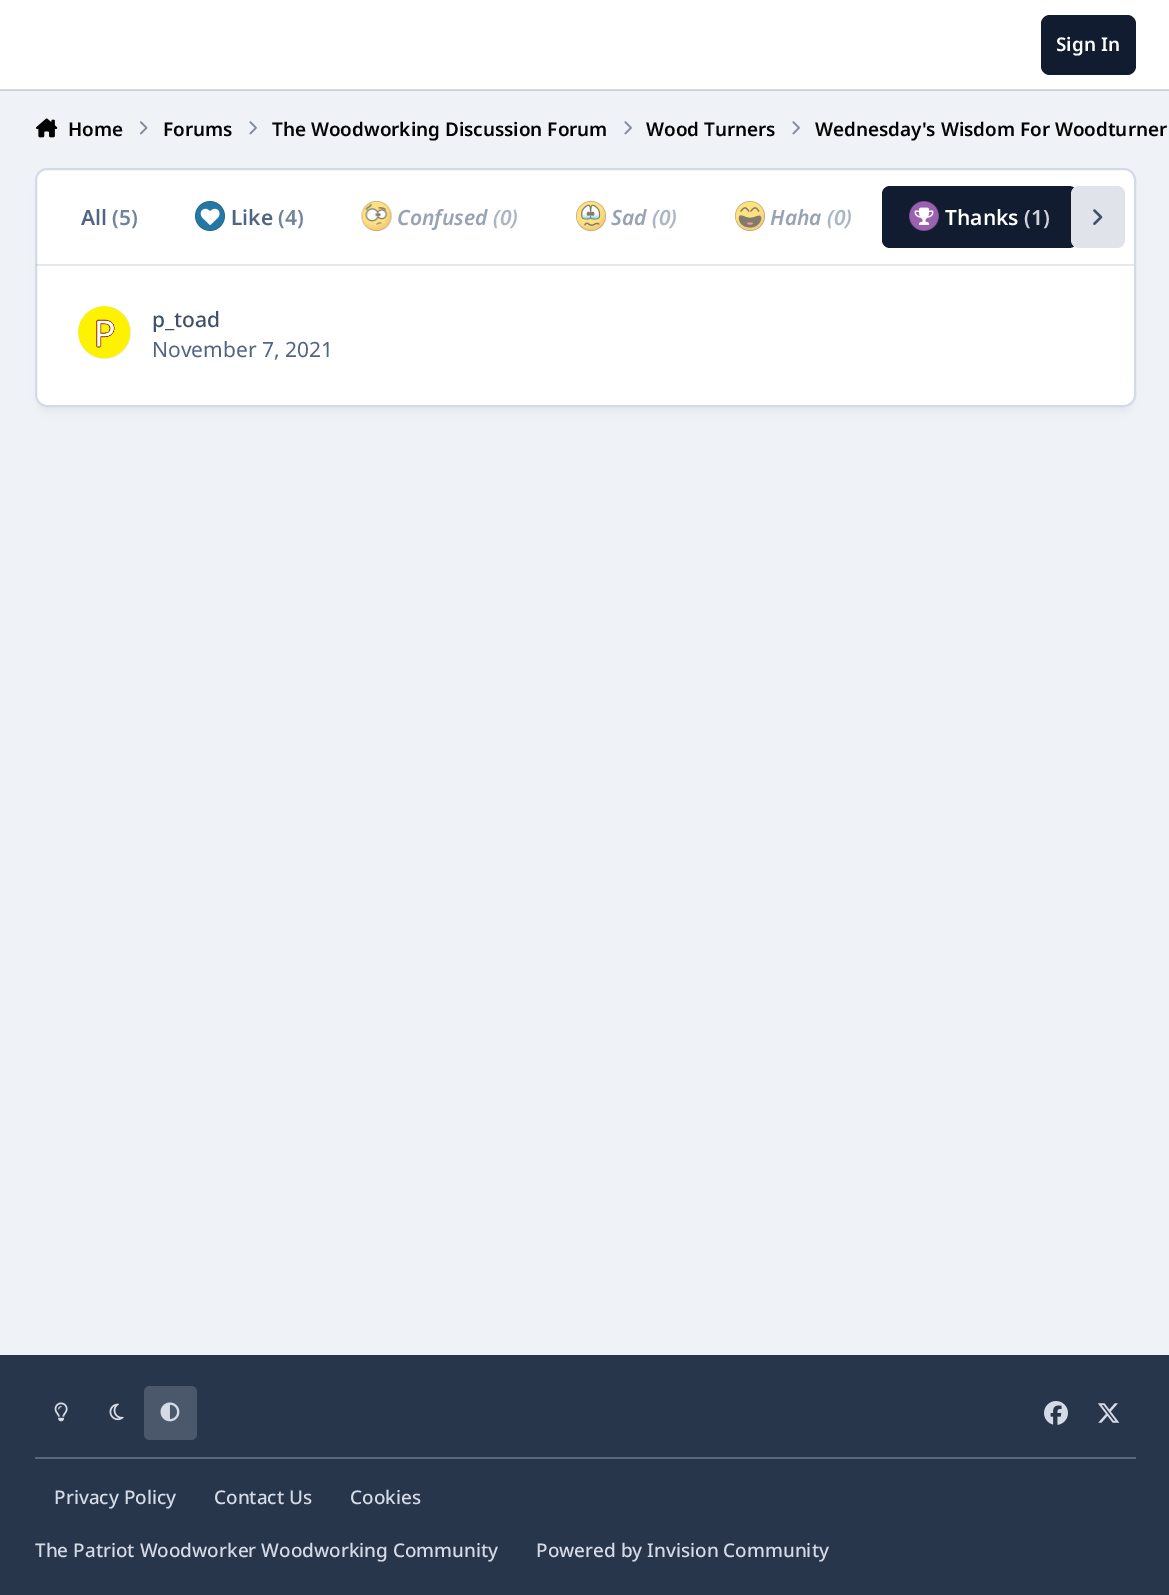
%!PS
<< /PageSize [1169 1595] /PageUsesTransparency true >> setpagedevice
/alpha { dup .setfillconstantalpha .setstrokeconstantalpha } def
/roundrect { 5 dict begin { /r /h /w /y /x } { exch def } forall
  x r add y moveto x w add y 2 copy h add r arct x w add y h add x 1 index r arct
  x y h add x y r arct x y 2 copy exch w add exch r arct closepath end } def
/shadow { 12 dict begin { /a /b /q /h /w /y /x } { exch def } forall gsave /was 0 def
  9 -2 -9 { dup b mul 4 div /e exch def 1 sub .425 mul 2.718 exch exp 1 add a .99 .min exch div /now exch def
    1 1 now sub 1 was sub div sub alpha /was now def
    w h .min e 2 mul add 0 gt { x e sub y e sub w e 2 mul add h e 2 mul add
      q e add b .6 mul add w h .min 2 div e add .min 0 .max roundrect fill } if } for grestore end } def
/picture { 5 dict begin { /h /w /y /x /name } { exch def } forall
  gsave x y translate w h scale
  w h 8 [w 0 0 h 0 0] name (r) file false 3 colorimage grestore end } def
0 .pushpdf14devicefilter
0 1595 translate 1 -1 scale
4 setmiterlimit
0.937 0.949 0.969 setrgbcolor
0 0 1169 1595 rectfill
0.8 0.812 0.835 setrgbcolor
0 90 1169 1 rectfill
1 setgray
0 0 1169 89 rectfill
0.855 0.855 0.863 setrgbcolor
0 89 1169 1 rectfill
0.067 0.11 0.192 setrgbcolor
1041 15 95 60 9 roundrect fill
/NotoSans-SemiBold [18.9 0 0 -18.9 0 0] selectfont
1 setgray
1056 51 moveto (Sign In) show
(img1.rgb) 36 118 22 20 picture
0.008 0.012 0.02 setrgbcolor
68 136 moveto (Home) show
(img2.rgb) 140 121 8 14 picture
163 136 moveto (Forums) show
(img3.rgb) 249 121 8 14 picture
272 136 moveto (The Woodworking Discussion Forum) show
(img3.rgb) 624 121 8 14 picture
646 136 moveto (Wood Turners) show
(img3.rgb) 792 121 8 14 picture
815 136 moveto (Wednesday's Wisdom For Woodturner) show
0.004 0.012 0.039 setrgbcolor
39 182 1092 229 8 5 0.05 shadow
1 setgray
36 169 1099 237 11 roundrect gsave fill grestore
0.835 0.859 0.902 setrgbcolor
2 setlinewidth
stroke
0.15 alpha
0.318 0.392 0.514 setrgbcolor
36 264 1098 2 rectfill
/NotoSans-SemiBold [21 0 0 -21 0 0] selectfont
1 alpha
81 225 moveto (All) show
0.455 0.514 0.612 setrgbcolor
112 225 moveto (\(5\)) show
(img4.rgb) 195 201 30 30 picture
0.318 0.392 0.514 setrgbcolor
231 225 moveto (Like) show
0.455 0.514 0.612 setrgbcolor
278 225 moveto (\(4\)) show
(img5.rgb) 361 201 31 30 picture
/NotoSans-SemiBoldItalic [21 0 0 -21 0 0] selectfont
0.592 0.635 0.71 setrgbcolor
397 225 moveto (Confused) show
0.671 0.71 0.765 setrgbcolor
493 225 moveto (\(0\)) show
(img6.rgb) 576 201 30 30 picture
0.592 0.635 0.71 setrgbcolor
611 225 moveto (Sad) show
0.671 0.71 0.765 setrgbcolor
652 225 moveto (\(0\)) show
(img7.rgb) 735 201 30 30 picture
0.592 0.635 0.71 setrgbcolor
770 225 moveto (Haha) show
0.671 0.71 0.765 setrgbcolor
827 225 moveto (\(0\)) show
0.067 0.11 0.192 setrgbcolor
882 186 195 62 8 roundrect fill
(img8.rgb) 909 201 30 30 picture
/NotoSans-SemiBold [21 0 0 -21 0 0] selectfont
1 setgray
945 225 moveto (Thanks) show
0.812 0.824 0.839 setrgbcolor
1024 225 moveto (\(1\)) show
0.878 0.89 0.914 setrgbcolor
1071 186 54 62 8 roundrect fill
(img9.rgb) 1093 209 10 16 picture
0.898 0.918 0.949 setrgbcolor
newpath 104.5 332.5 26.5 0 360 arc closepath fill
(img10.rgb) 78 306 53 53 picture
/NotoSans-Medium [21 0 0 -21 0 0] selectfont
0.251 0.314 0.42 setrgbcolor
152 327 moveto (p_toad) show
/NotoSans-Regular [21 0 0 -21 0 0] selectfont
0.318 0.392 0.514 setrgbcolor
152 357 moveto (November 7, 2021) show
0.157 0.212 0.298 setrgbcolor
0 1355 1169 240 rectfill
(img11.rgb) 54 1402 14 20 picture
(img12.rgb) 109 1403 15 18 picture
0.294 0.341 0.42 setrgbcolor
144 1386 53 54 6 roundrect fill
(img13.rgb) 160 1402 20 20 picture
(img14.rgb) 1044 1401 24 24 picture
(img15.rgb) 1097 1403 23 20 picture
0.361 0.408 0.478 setrgbcolor
35 1457 1101 2 rectfill
/NotoSans-Medium [18.9 0 0 -18.9 0 0] selectfont
0.835 0.859 0.902 setrgbcolor
54 1504 moveto (Privacy Policy) show
214 1504 moveto (Contact Us) show
350 1504 moveto (Cookies) show
35 1557 moveto (The Patriot Woodworker Woodworking Community) show
536 1557 moveto (Powered by Invision Community) show
.poppdf14devicefilter showpage
